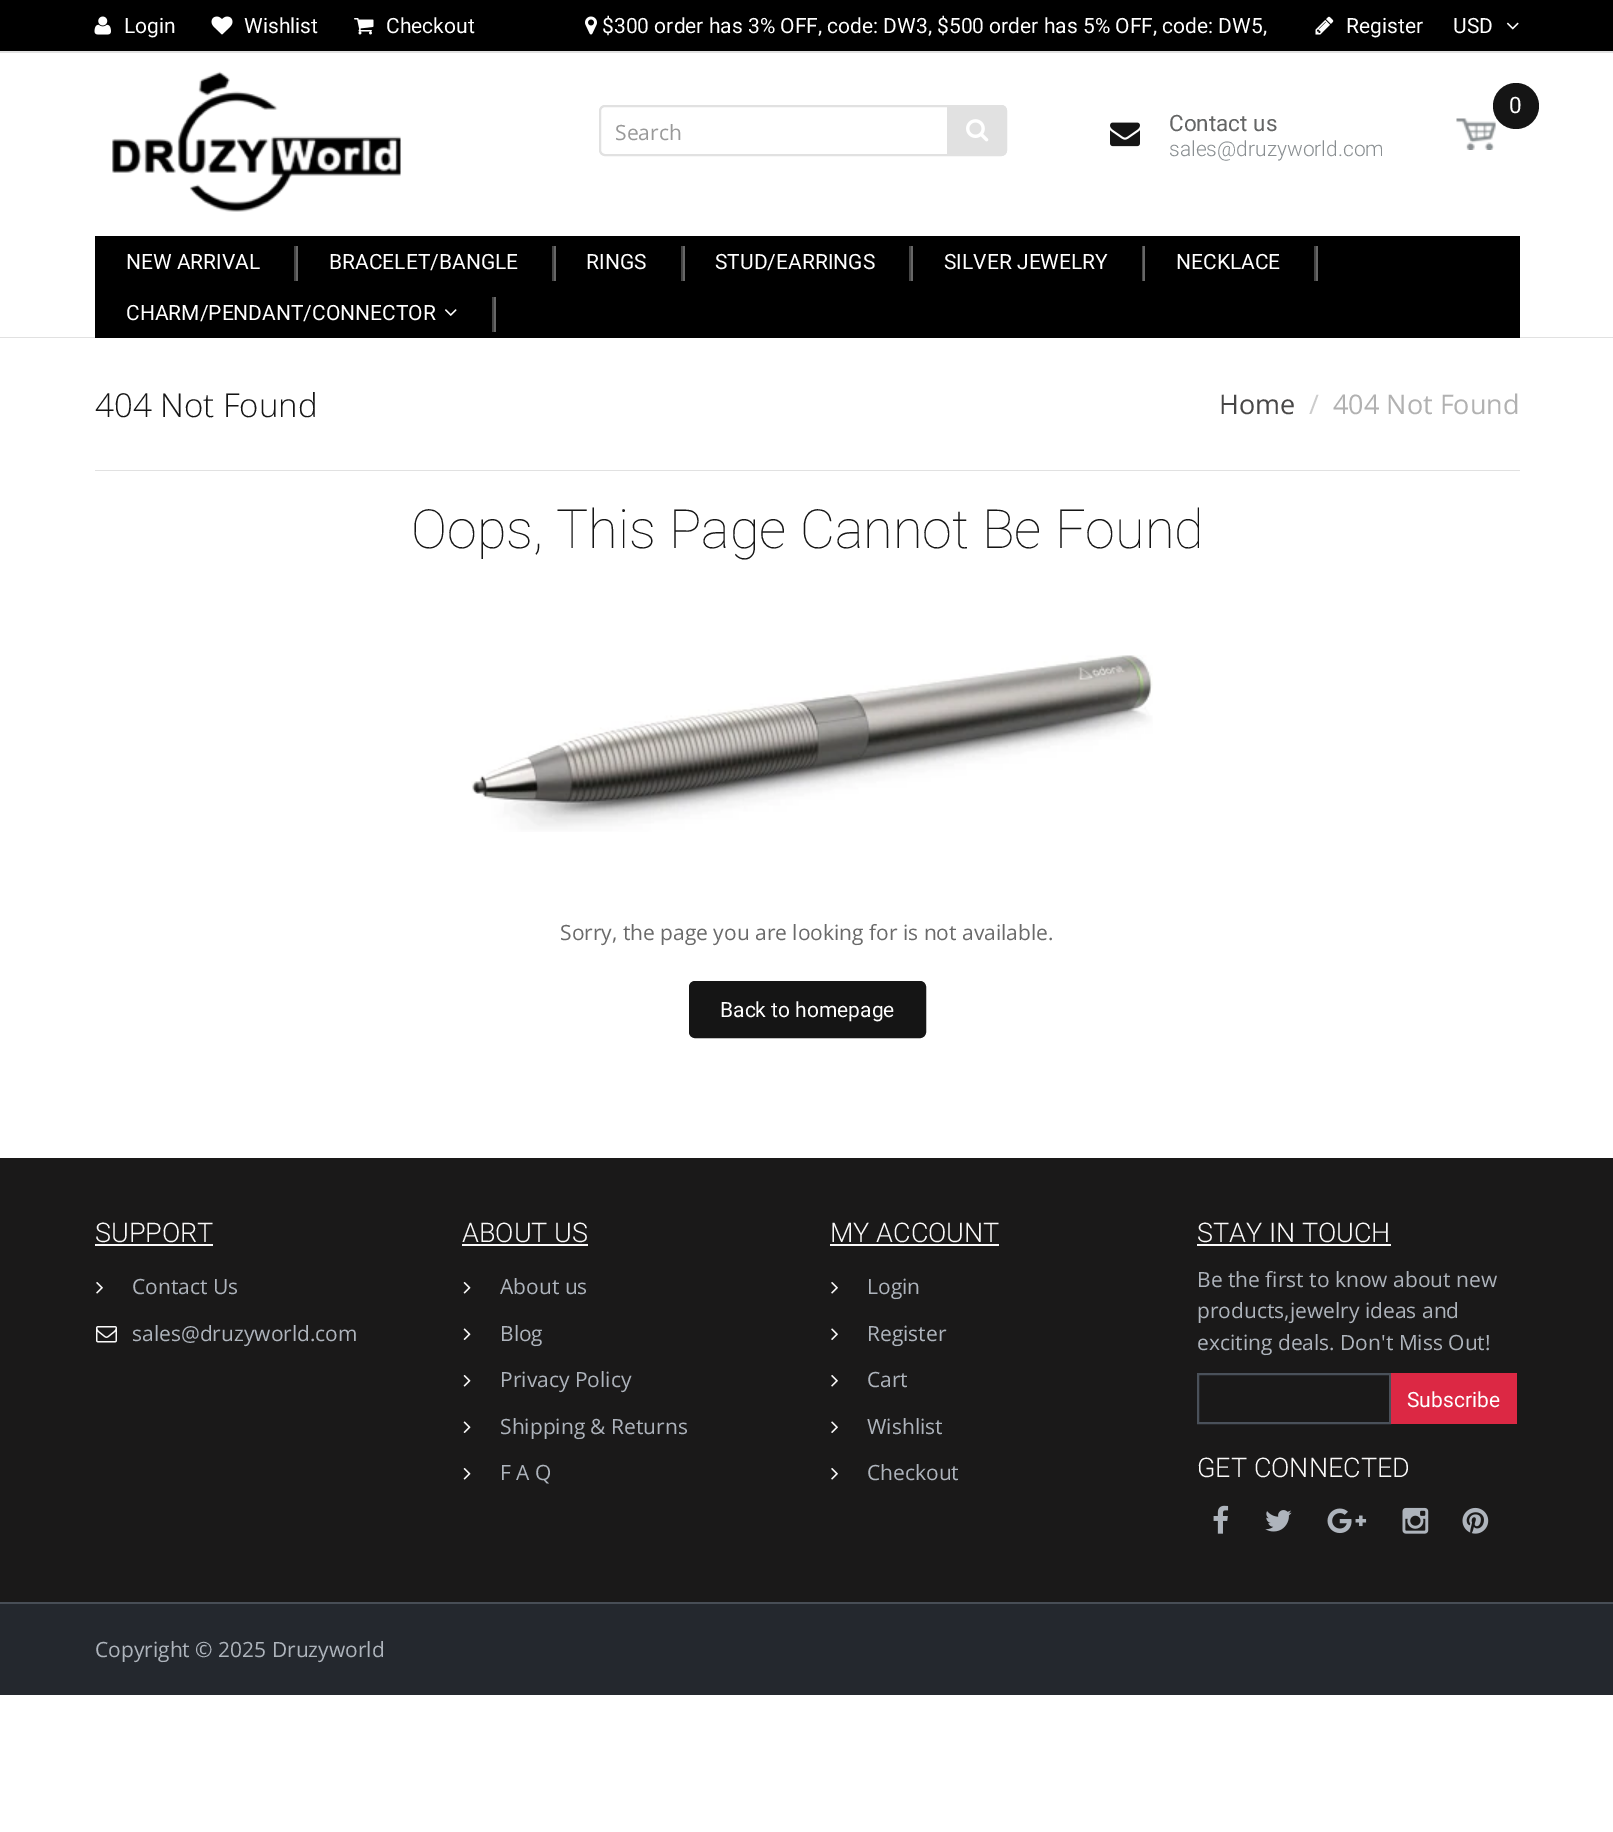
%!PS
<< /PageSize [1613 1832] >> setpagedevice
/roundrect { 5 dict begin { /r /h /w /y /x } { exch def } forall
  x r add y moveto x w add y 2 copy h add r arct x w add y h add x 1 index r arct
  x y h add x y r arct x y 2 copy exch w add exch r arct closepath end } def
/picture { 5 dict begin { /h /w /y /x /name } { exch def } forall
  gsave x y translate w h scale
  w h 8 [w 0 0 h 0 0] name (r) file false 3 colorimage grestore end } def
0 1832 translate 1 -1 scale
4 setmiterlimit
1 setgray
0 0 1613 1832 rectfill
0.882 setgray
0 337 1613 1 rectfill
0 setgray
0 0 1613 51 rectfill
0.882 setgray
0 51 1613 2 rectfill
(img1.rgb) 94 16 17 19 picture
/Roboto-Regular [21 0 0 -21 0 0] selectfont
1 setgray
124 33 moveto (Login) show
(img2.rgb) 211 16 22 19 picture
244 33 moveto (Wishlist) show
(img3.rgb) 354 18 20 17 picture
386 33 moveto (Checkout) show
(img4.rgb) 585 16 12 19 picture
602 33 moveto ($300 order has 3% OFF, code: DW3, $500 order has 5% OFF, code: DW5,) show
(img5.rgb) 1315 16 19 19 picture
1346 33 moveto (Register) show
1453 33 moveto (USD) show
(img6.rgb) 1506 22 13 8 picture
(img7.rgb) 112 71 289 141 picture
(img8.rgb) 1456 118 40 32 picture
0.082 setgray
newpath 1516 106 23 0 360 arc closepath fill
/Roboto-Regular [22.5 0 0 -22.5 0 0] selectfont
1 setgray
1509 113 moveto (0) show
0.882 setgray
2 setlinewidth
600 106 406 49 5 roundrect stroke
/OpenSans-Regular [21 0 0 -21 0 0] selectfont
0.6 setgray
615 140 moveto (Search) show
0.882 setgray
newpath 947 105 moveto 1001 105 lineto 1004.5 105 1007 107.5 1007 111 curveto 1007 150 lineto 1007 153.5 1004.5 156 1001 156 curveto 947 156 lineto closepath fill
(img9.rgb) 966 119 23 23 picture
(img10.rgb) 1110 122 30 25 picture
/Roboto-Regular [22.5 0 0 -22.5 0 0] selectfont
0.392 0.396 0.396 setrgbcolor
1169 131 moveto (Contact us) show
/Roboto-Light [21 0 0 -21 0 0] selectfont
0.537 0.557 0.569 setrgbcolor
1169 156 moveto (sales@druzyworld.com) show
0 setgray
95 236 1425 102 rectfill
/Roboto-Regular [21 0 0 -21 0 0] selectfont
1 setgray
126 269 moveto (NEW ARRIVAL) show
0.271 setgray
294 246 2 35 rectfill
0.404 setgray
296 246 2 35 rectfill
1 setgray
329 269 moveto (BRACELET/BANGLE) show
0.271 setgray
552 246 2 35 rectfill
0.404 setgray
554 246 2 35 rectfill
1 setgray
586 269 moveto (RINGS) show
0.271 setgray
681 246 2 35 rectfill
0.404 setgray
683 246 2 35 rectfill
1 setgray
715 269 moveto (STUD/EARRINGS) show
0.271 setgray
909 246 2 35 rectfill
0.404 setgray
911 246 2 35 rectfill
1 setgray
944 269 moveto (SILVER JEWELRY) show
0.271 setgray
1142 246 1 35 rectfill
0.404 setgray
1143 246 2 35 rectfill
1 setgray
1176 269 moveto (NECKLACE) show
0.271 setgray
1314 246 2 35 rectfill
0.404 setgray
1316 246 2 35 rectfill
1 setgray
126 320 moveto (CHARM/PENDANT/CONNECTOR) show
(img11.rgb) 445 309 12 7 picture
0.271 setgray
492 297 2 35 rectfill
0.404 setgray
494 297 2 35 rectfill
/OpenSans-Light [33 0 0 -33 0 0] selectfont
0.082 setgray
95 417 moveto (404 Not Found) show
/OpenSans-Regular [27 0 0 -27 0 0] selectfont
0.282 0.278 0.278 setrgbcolor
1219 414 moveto (Home) show
0.8 setgray
1309 414 moveto (/) show
0.694 setgray
1333 414 moveto (404 Not Found) show
0.882 setgray
95 470 1425 1 rectfill
/Roboto-Thin [54 0 0 -54 0 0] selectfont
0.082 setgray
411 548 moveto (Oops, This Page Cannot Be Found) show
(img12.rgb) 471 655 682 177 picture
/OpenSans-Regular [21 0 0 -21 0 0] selectfont
0.416 setgray
560 940 moveto (Sorry, the page you are looking for is not available.) show
0.082 setgray
690 982 235 55 5 roundrect gsave fill grestore
stroke
/Roboto-Regular [21 0 0 -21 0 0] selectfont
1 setgray
720 1017 moveto (Back to homepage) show
0.102 0.098 0.098 setrgbcolor
0 1158 1613 444 rectfill
/Roboto-Light [27 0 0 -27 0 0] selectfont
0.98 0.976 0.976 setrgbcolor
95 1242 moveto (SUPPORT) show
95 1244 118 2 rectfill
(img13.rgb) 96 1282 7 12 picture
/OpenSans-Regular [21 0 0 -21 0 0] selectfont
0.682 0.706 0.737 setrgbcolor
132 1294 moveto (Contact Us) show
(img14.rgb) 96 1326 21 17 picture
132 1341 moveto (sales@druzyworld.com) show
/Roboto-Light [27 0 0 -27 0 0] selectfont
0.98 0.976 0.976 setrgbcolor
462 1242 moveto (ABOUT US) show
462 1244 126 2 rectfill
(img15.rgb) 463 1282 8 12 picture
/OpenSans-Regular [21 0 0 -21 0 0] selectfont
0.682 0.706 0.737 setrgbcolor
500 1294 moveto (About us) show
(img16.rgb) 463 1328 8 12 picture
500 1341 moveto (Blog) show
(img15.rgb) 463 1375 8 12 picture
500 1387 moveto (Privacy Policy) show
(img16.rgb) 463 1421 8 12 picture
500 1434 moveto (Shipping & Returns) show
(img15.rgb) 463 1468 8 12 picture
500 1480 moveto (F A Q) show
/Roboto-Light [27 0 0 -27 0 0] selectfont
0.98 0.976 0.976 setrgbcolor
830 1242 moveto (MY ACCOUNT) show
830 1244 169 2 rectfill
(img13.rgb) 831 1282 7 12 picture
/OpenSans-Regular [21 0 0 -21 0 0] selectfont
0.682 0.706 0.737 setrgbcolor
867 1294 moveto (Login) show
(img17.rgb) 831 1328 7 12 picture
867 1341 moveto (Register) show
(img13.rgb) 831 1375 7 12 picture
867 1387 moveto (Cart) show
(img17.rgb) 831 1421 7 12 picture
867 1434 moveto (Wishlist) show
(img13.rgb) 831 1468 7 12 picture
867 1480 moveto (Checkout) show
/Roboto-Light [27 0 0 -27 0 0] selectfont
0.98 0.976 0.976 setrgbcolor
1197 1242 moveto (STAY IN TOUCH) show
1197 1244 194 2 rectfill
/OpenSans-Regular [21 0 0 -21 0 0] selectfont
0.682 0.706 0.737 setrgbcolor
1197 1287 moveto (Be the first to know about new) show
1197 1318 moveto (products,jewelry ideas and) show
1197 1350 moveto (exciting deals. Don't Miss Out!) show
0.29 0.318 0.353 setrgbcolor
1198 1374 192 49 rectstroke
0.863 0.157 0.267 setrgbcolor
1391 1373 126 51 rectfill
/Roboto-Regular [21 0 0 -21 0 0] selectfont
1 setgray
1407 1407 moveto (Subscribe) show
/Roboto-Light [27 0 0 -27 0 0] selectfont
0.98 0.976 0.976 setrgbcolor
1197 1477 moveto (GET CONNECTED) show
(img18.rgb) 1213 1505 16 29 picture
(img19.rgb) 1265 1510 27 22 picture
(img20.rgb) 1327 1508 40 26 picture
(img21.rgb) 1402 1507 27 27 picture
(img22.rgb) 1462 1507 27 27 picture
0.141 0.157 0.18 setrgbcolor
0 1604 1613 91 rectfill
0.282 0.306 0.337 setrgbcolor
0 1602 1613 2 rectfill
/OpenSans-Regular [21 0 0 -21 0 0] selectfont
0.682 0.706 0.737 setrgbcolor
95 1657 moveto (Copyright © 2025 Druzyworld) show
showpage
